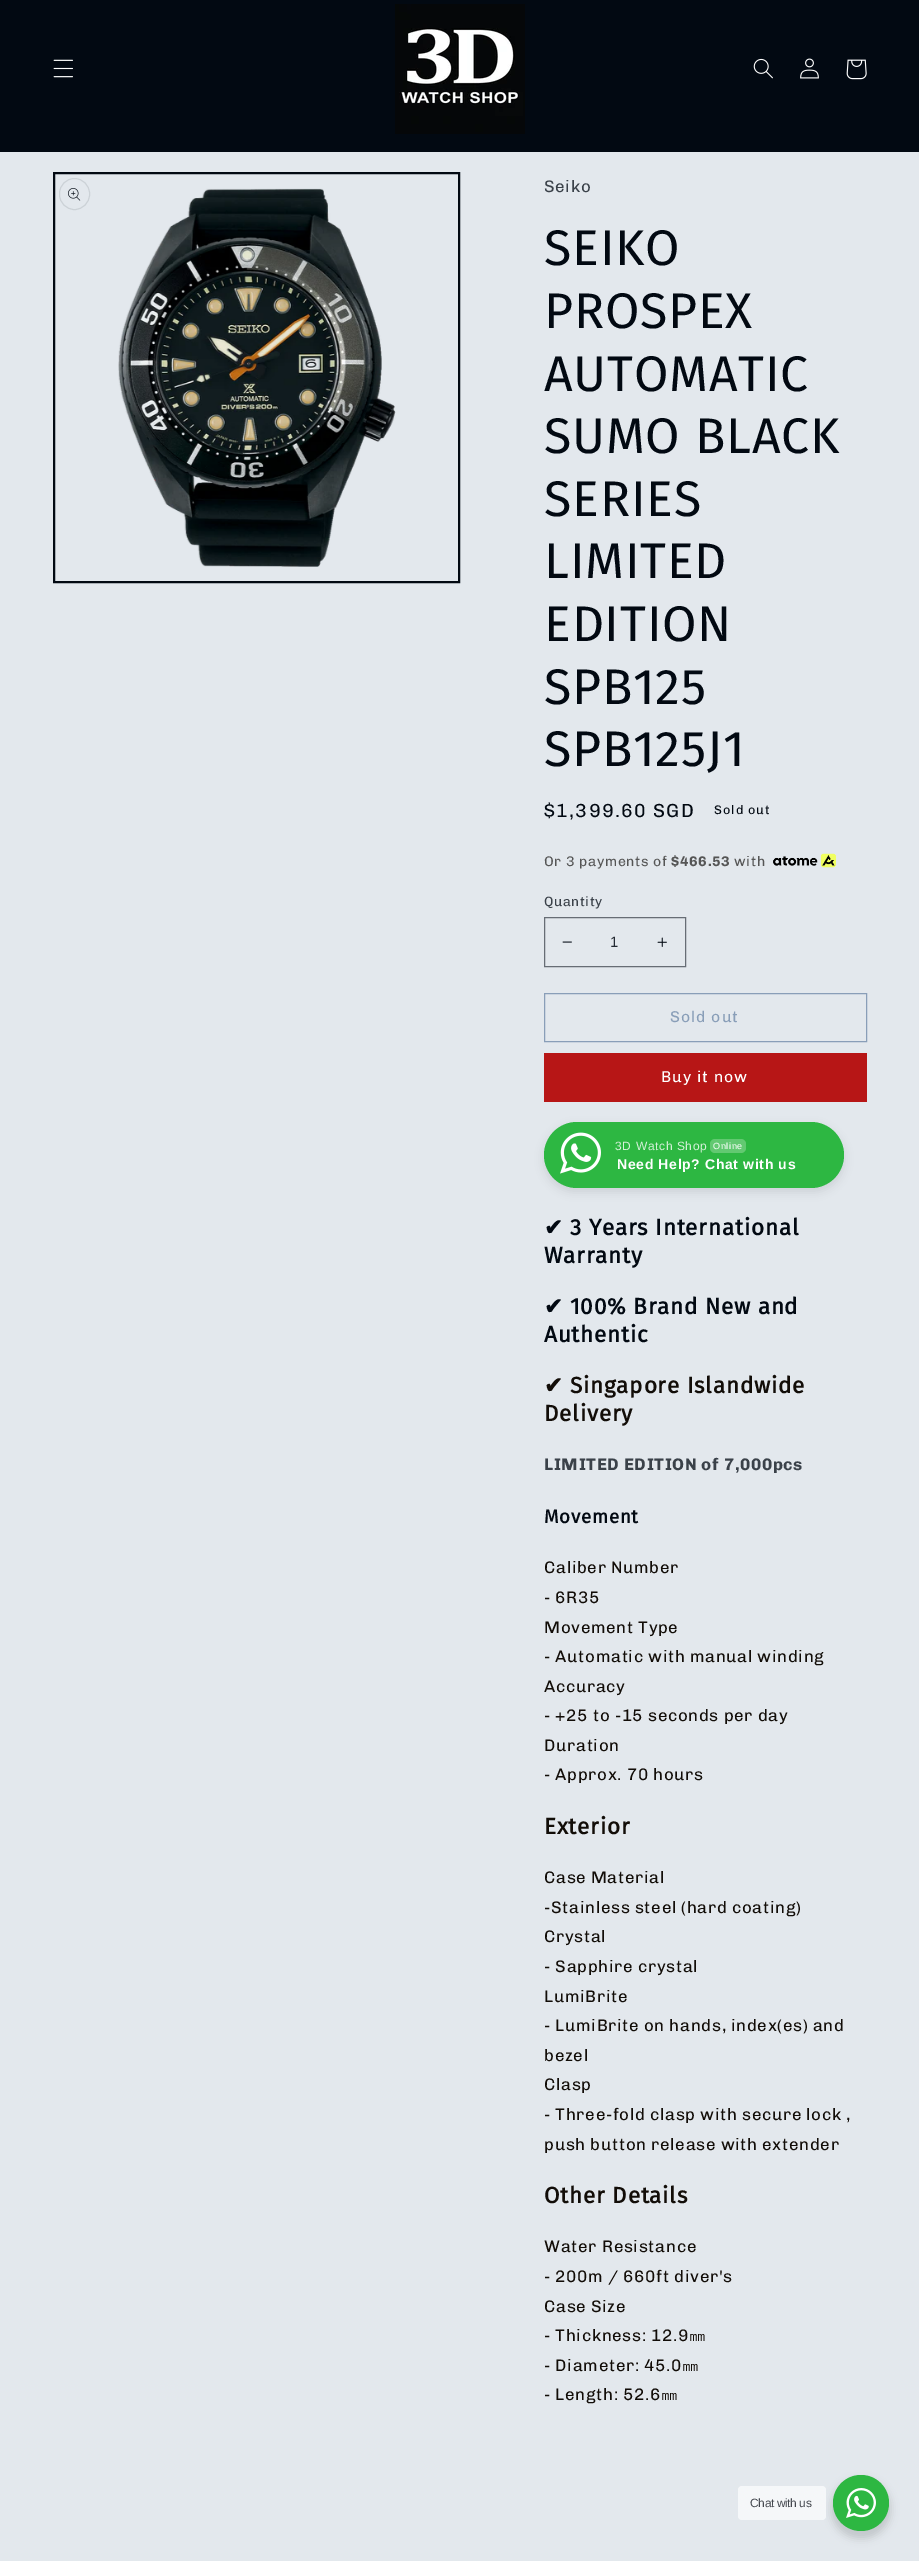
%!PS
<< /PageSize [919 2561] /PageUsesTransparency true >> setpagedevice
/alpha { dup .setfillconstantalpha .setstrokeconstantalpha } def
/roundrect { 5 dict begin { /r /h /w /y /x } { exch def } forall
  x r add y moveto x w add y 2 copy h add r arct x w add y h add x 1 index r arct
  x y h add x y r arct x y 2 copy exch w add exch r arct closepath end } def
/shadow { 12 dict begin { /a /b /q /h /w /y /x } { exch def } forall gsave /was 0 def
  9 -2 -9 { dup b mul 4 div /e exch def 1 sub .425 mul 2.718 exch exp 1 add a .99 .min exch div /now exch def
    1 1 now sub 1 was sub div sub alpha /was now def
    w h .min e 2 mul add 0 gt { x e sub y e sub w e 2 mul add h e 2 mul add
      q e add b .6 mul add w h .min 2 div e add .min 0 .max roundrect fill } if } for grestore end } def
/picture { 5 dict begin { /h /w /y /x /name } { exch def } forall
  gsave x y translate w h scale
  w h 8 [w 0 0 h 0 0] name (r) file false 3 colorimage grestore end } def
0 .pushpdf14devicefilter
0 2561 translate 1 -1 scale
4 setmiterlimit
0.89 0.91 0.929 setrgbcolor
0 0 919 2561 rectfill
0.008 0.035 0.071 setrgbcolor
0 0 919 152 rectfill
(img1.rgb) 53 59 20 19 picture
(img2.rgb) 395 4 130 130 picture
(img3.rgb) 753 58 20 21 picture
(img4.rgb) 800 58 19 21 picture
(img5.rgb) 846 59 21 21 picture
2 setlinewidth
54 173 405 409 rectstroke
(img6.rgb) 118 188 278 379 picture
0.8 0.824 0.843 setrgbcolor
1 setlinewidth
59.5 178.5 30 31 15 roundrect stroke
(img7.rgb) 68 188 13 13 picture
/Chivo-Regular [16.75 0 0 -16.75 0 0] selectfont
0.227 0.255 0.286 setrgbcolor
544 192 moveto 0.65 0 (Seiko) ashow
/FiraSans-Regular [50 0 0 -50 0 0] selectfont
0.008 0.035 0.071 setrgbcolor
544 265 moveto 0.75 0 (SEIKO) ashow
544 328 moveto 0.75 0 (PROSPEX) ashow
544 391 moveto 0.75 0 (AUTOMATIC) ashow
544 453 moveto 0.75 0 (SUMO BLACK) ashow
544 516 moveto 0.75 0 (SERIES) ashow
544 578 moveto 0.75 0 (LIMITED) ashow
544 641 moveto 0.75 0 (EDITION) ashow
544 704 moveto 0.75 0 (SPB125) ashow
544 766 moveto 0.75 0 (SPB125J1) ashow
/Chivo-Regular [19 0 0 -19 0 0] selectfont
544 817 moveto 1.4 0 ($1,399.60 SGD) ashow
/Chivo-Regular [12.5 0 0 -12.5 0 0] selectfont
714 814 moveto 1 0 (Sold out) ashow
/Chivo-Regular [14 0 0 -14 0 0] selectfont
0.333 setgray
544 866 moveto 0.65 0 (Or 3 payments of) ashow
/Chivo-Bold [14 0 0 -14 0 0] selectfont
671 866 moveto 0.65 0 ($466.53) ashow
/Chivo-Regular [14 0 0 -14 0 0] selectfont
734 866 moveto 0.65 0 (with) ashow
(img8.rgb) 773 853 64 15 picture
/Chivo-Regular [13.5 0 0 -13.5 0 0] selectfont
0.227 0.255 0.286 setrgbcolor
544 906 moveto 0.5 0 (Quantity) ashow
(img9.rgb) 562 941 10 2 picture
(img10.rgb) 657 937 10 10 picture
0.404 0.427 0.459 setrgbcolor
544.5 917.5 141 49 rectstroke
/LiberationSans-Regular [15 0 0 -15 0 0] selectfont
0.141 0.165 0.2 setrgbcolor
610 947 moveto (1) show
0.537 0.62 0.722 setrgbcolor
544.5 993.5 322 48 rectstroke
/Chivo-Regular [15.75 0 0 -15.75 0 0] selectfont
670 1022 moveto 1 0 (Sold out) ashow
0.718 0.086 0.086 setrgbcolor
544 1053 323 49 rectfill
1 setgray
661 1082 moveto 1 0 (Buy it now) ashow
0.125 0.125 0.145 setrgbcolor
543 1125 302 68 34 4 0.09 shadow
0.176 0.718 0.259 setrgbcolor
544 1122 300 66 33 roundrect fill
(img11.rgb) 560 1132 41 42 picture
/LiberationSans-Regular [12 0 0 -12 0 0] selectfont
0.835 0.941 0.851 setrgbcolor
615 1150 moveto 0.65 0 (3D Watch Shop) ashow
0.384 0.788 0.443 setrgbcolor
710 1139 36 14 5 roundrect fill
/LiberationSans-Regular [9 0 0 -9 0 0] selectfont
1 setgray
713 1149 moveto 0.65 0 (Online) ashow
/LiberationSans-Bold [14 0 0 -14 0 0] selectfont
617 1169 moveto 0.65 0 (Need Help? Chat with us) ashow
/DejaVuSans-Bold [22.5 0 0 -22.5 0 0] selectfont
0.008 0.035 0.071 setrgbcolor
544 1235 moveto 0.75 0 (✔) ashow
/FiraSans-Bold [22.5 0 0 -22.5 0 0] selectfont
570 1235 moveto 0.75 0 (3 Years International) ashow
544 1263 moveto 0.75 0 (Warranty) ashow
/DejaVuSans-Bold [22.5 0 0 -22.5 0 0] selectfont
544 1314 moveto 0.75 0 (✔) ashow
/FiraSans-Bold [22.5 0 0 -22.5 0 0] selectfont
570 1314 moveto 0.75 0 (100% Brand New and) ashow
544 1342 moveto 0.75 0 (Authentic) ashow
/DejaVuSans-Bold [22.5 0 0 -22.5 0 0] selectfont
0.071 0.051 0.031 setrgbcolor
544 1393 moveto 0.75 0 (✔) ashow
/FiraSans-Bold [22.5 0 0 -22.5 0 0] selectfont
570 1393 moveto 0.75 0 (Singapore Islandwide) ashow
544 1421 moveto 0.75 0 (Delivery) ashow
/Chivo-Bold [16.75 0 0 -16.75 0 0] selectfont
0.227 0.255 0.286 setrgbcolor
544 1470 moveto 0.65 0 (LIMITED EDITION of 7,000pcs) ashow
/FiraSans-Bold [18.75 0 0 -18.75 0 0] selectfont
0.008 0.035 0.071 setrgbcolor
544 1523 moveto 0.75 0 (Movement) ashow
/Chivo-Regular [16.75 0 0 -16.75 0 0] selectfont
0.071 0.051 0.031 setrgbcolor
544 1573 moveto 0.65 0 (Caliber Number) ashow
544 1603 moveto 0.65 0 (- 6R35) ashow
544 1633 moveto 0.65 0 (Movement Type) ashow
544 1662 moveto 0.65 0 (- Automatic with manual winding) ashow
544 1692 moveto 0.65 0 (Accuracy) ashow
544 1721 moveto 0.65 0 (- +25 to -15 seconds per day) ashow
544 1751 moveto 0.65 0 (Duration) ashow
544 1780 moveto 0.65 0 (- Approx. 70 hours) ashow
/FiraSans-Bold [22.5 0 0 -22.5 0 0] selectfont
544 1834 moveto 0.75 0 (Exterior) ashow
/Chivo-Regular [16.75 0 0 -16.75 0 0] selectfont
544 1883 moveto 0.65 0 (Case Material) ashow
544 1913 moveto 0.65 0 (-Stainless steel \(hard coating\)) ashow
544 1942 moveto 0.65 0 (Crystal) ashow
544 1972 moveto 0.65 0 (- Sapphire crystal) ashow
544 2002 moveto 0.65 0 (LumiBrite) ashow
544 2031 moveto 0.65 0 (- LumiBrite on hands, index\(es\) and) ashow
544 2061 moveto 0.65 0 (bezel) ashow
544 2090 moveto 0.65 0 (Clasp) ashow
544 2120 moveto 0.65 0 (- Three-fold clasp with secure lock ,) ashow
544 2150 moveto 0.65 0 (push button release with extender) ashow
/FiraSans-Bold [22.5 0 0 -22.5 0 0] selectfont
544 2203 moveto 0.75 0 (Other Details) ashow
/Chivo-Regular [16.75 0 0 -16.75 0 0] selectfont
544 2252 moveto 0.65 0 (Water Resistance) ashow
544 2282 moveto 0.65 0 (- 200m / 660ft diver's) ashow
544 2312 moveto 0.65 0 (Case Size) ashow
544 2341 moveto 0.65 0 (- Thickness: 12.9) ashow
/WenQuanYiZenHei-Medium [16.75 0 0 -16.75 0 0] selectfont
689 2341 moveto 0.65 0 (㎜) ashow
/Chivo-Regular [16.75 0 0 -16.75 0 0] selectfont
544 2371 moveto 0.65 0 (- Diameter: 45.0) ashow
/WenQuanYiZenHei-Medium [16.75 0 0 -16.75 0 0] selectfont
682 2371 moveto 0.65 0 (㎜) ashow
/Chivo-Regular [16.75 0 0 -16.75 0 0] selectfont
544 2400 moveto 0.65 0 (- Length: 52.6) ashow
/WenQuanYiZenHei-Medium [16.75 0 0 -16.75 0 0] selectfont
661 2400 moveto 0.65 0 (㎜) ashow
0 setgray
831 2479 60 60 30 4 0.14 shadow
0.961 0.969 0.976 setrgbcolor
738 2486 88 34 4 roundrect fill
/LiberationSans-Regular [12 0 0 -12 0 0] selectfont
0.263 0.278 0.306 setrgbcolor
750 2507 moveto -0.4 0 (Chat with us) ashow
0.176 0.718 0.259 setrgbcolor
newpath 861 2503 28 0 360 arc closepath fill
(img12.rgb) 846 2488 30 30 picture
.poppdf14devicefilter showpage
